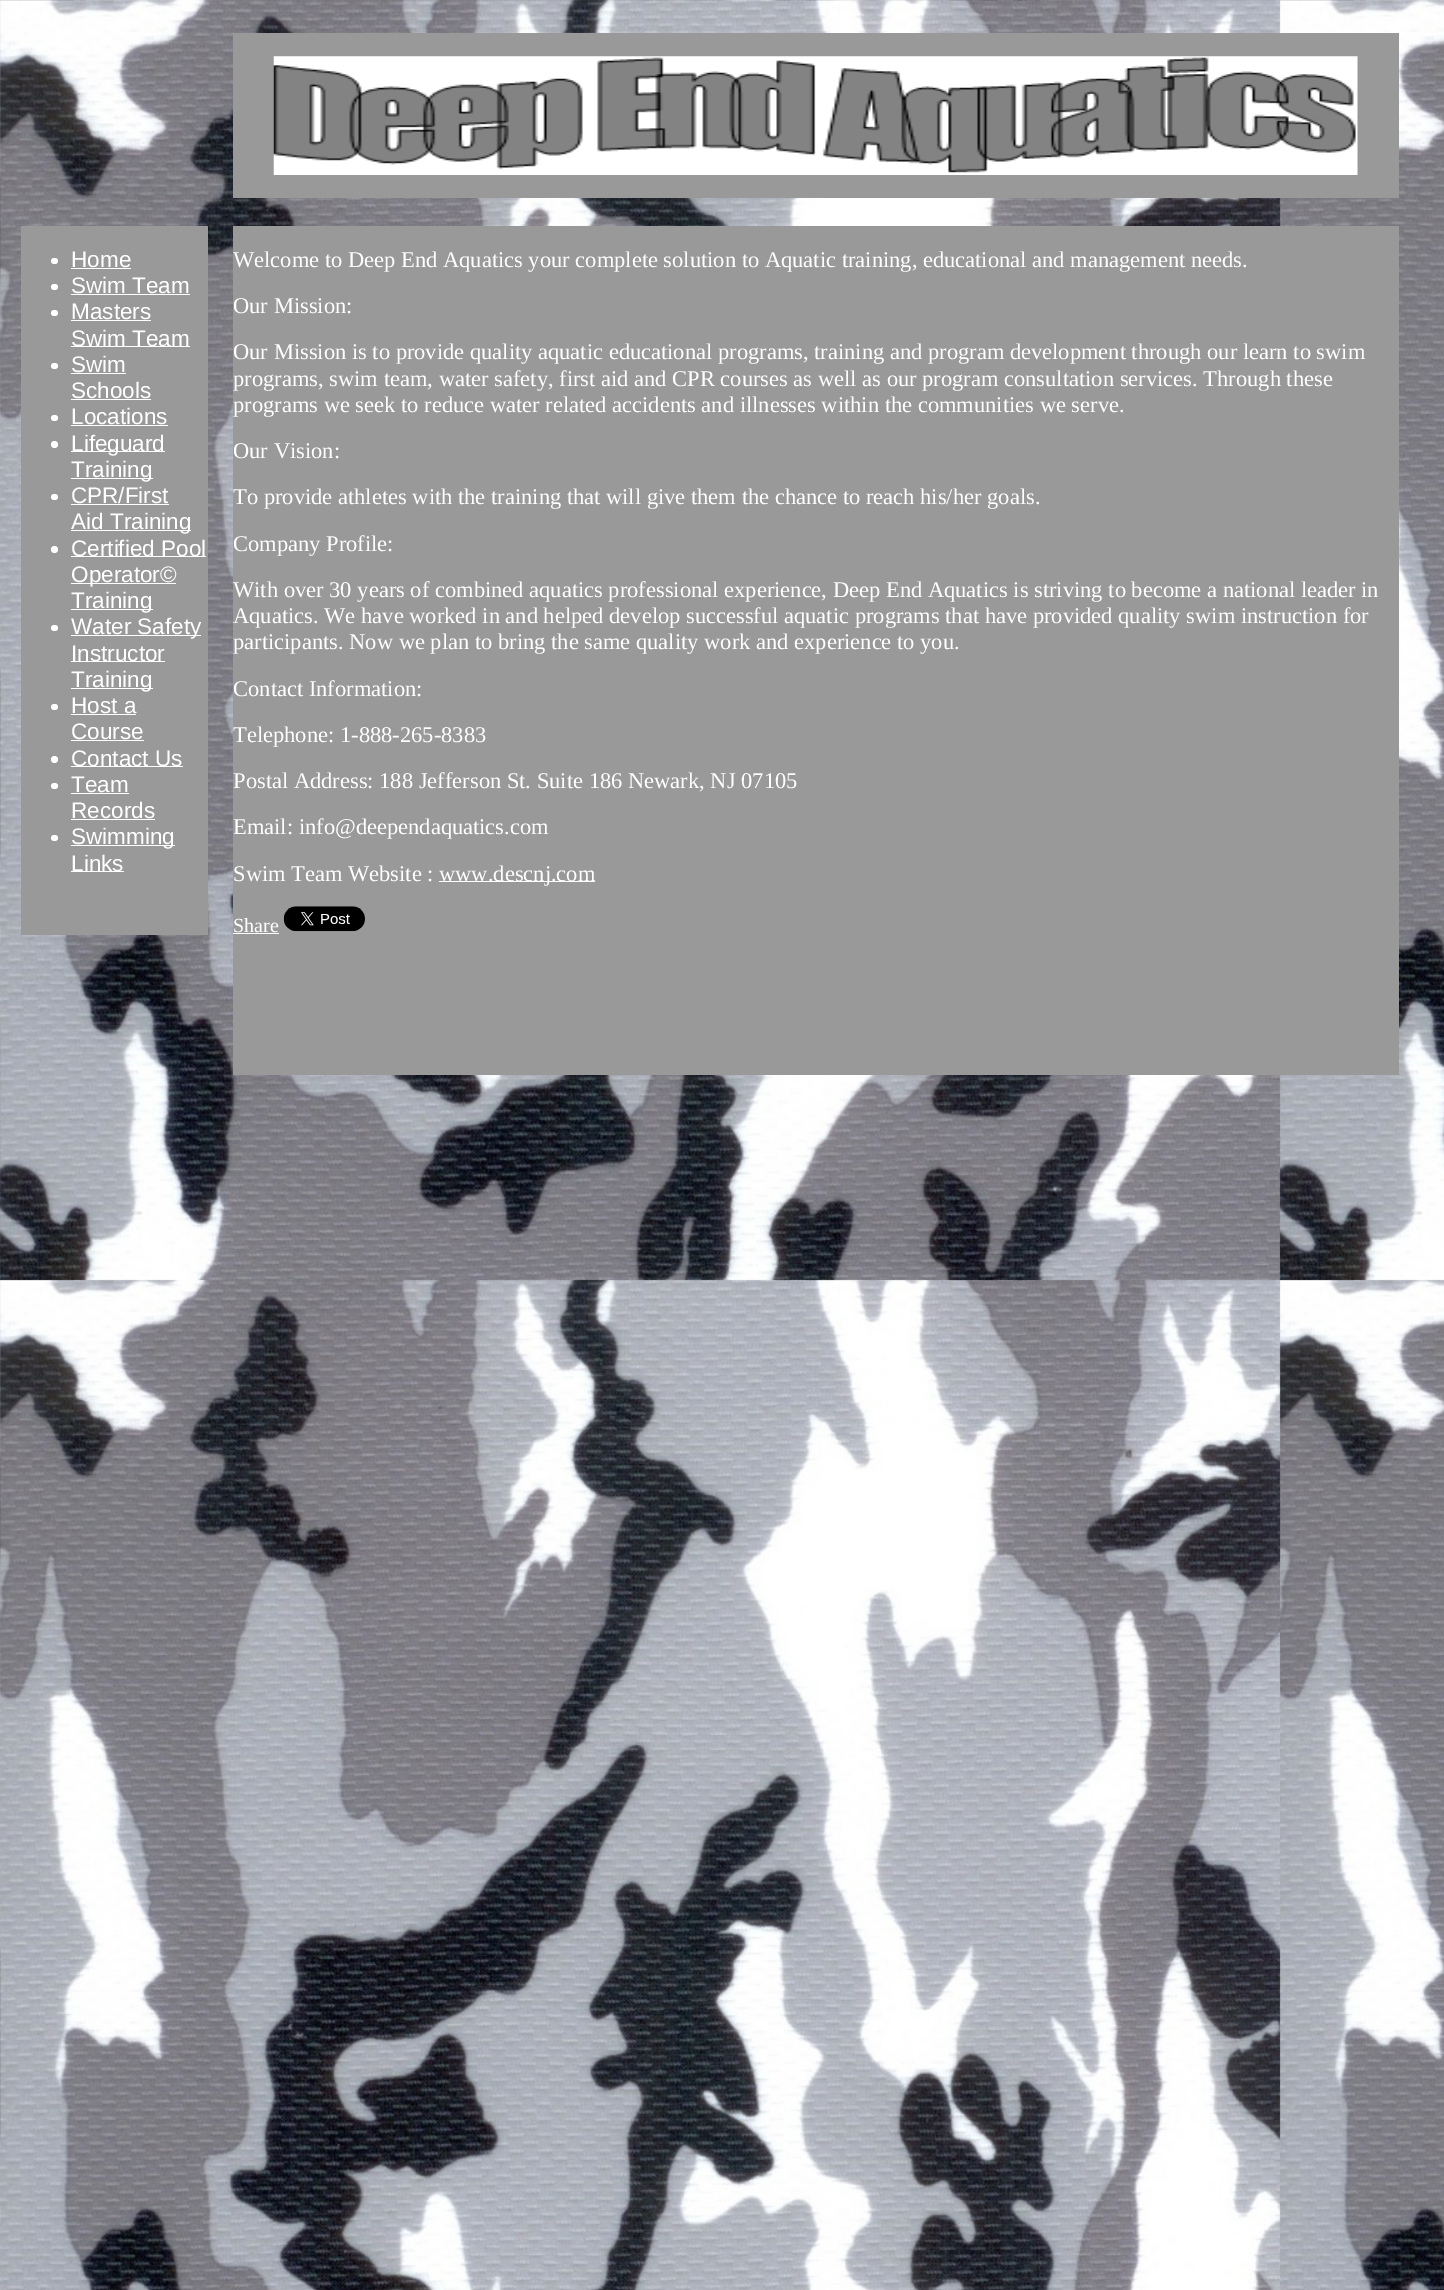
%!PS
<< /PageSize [1444 2290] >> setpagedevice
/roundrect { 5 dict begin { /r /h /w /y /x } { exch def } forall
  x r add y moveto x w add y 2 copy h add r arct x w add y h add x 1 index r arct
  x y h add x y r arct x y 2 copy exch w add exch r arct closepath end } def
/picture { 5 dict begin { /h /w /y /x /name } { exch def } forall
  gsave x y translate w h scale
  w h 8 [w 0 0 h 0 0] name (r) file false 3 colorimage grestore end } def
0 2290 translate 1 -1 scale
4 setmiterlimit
1 setgray
0 0 1444 2290 rectfill
(img1.rgb) 0 0 1444 2290 picture
0.6 setgray
233 33 1166 165 rectfill
(img2.rgb) 273 56 1085 119 picture
21 226 187 709 rectfill
1 setgray
51 258 7 6 3 roundrect fill
/LiberationSans-Regular [22.5 0 0 -22.5 0 0] selectfont
71 267 moveto (Home) show
71 268 60 1 rectfill
51 284 7 6 3 roundrect fill
71 293 moveto (Swim Team) show
71 294 119 1 rectfill
51 310 7 6 3 roundrect fill
71 319 moveto (Masters) show
71 320 80 1 rectfill
71 346 119 1 rectfill
71 346 moveto (Swim Team) show
51 363 7 6 3 roundrect fill
71 372 moveto (Swim) show
71 373 55 1 rectfill
71 398 moveto (Schools) show
71 399 80 1 rectfill
51 415 7 6 3 roundrect fill
71 424 moveto (Locations) show
71 425 97 1 rectfill
newpath 54.5 444.5 3.5 0 360 arc closepath fill
71 451 94 1 rectfill
71 451 moveto (Lifeguard) show
71 478 82 1 rectfill
71 477 moveto (Training) show
51 494 7 6 3 roundrect fill
71 503 moveto (CPR/First) show
71 504 98 1 rectfill
71 530 120 1 rectfill
71 529 moveto (Aid Training) show
newpath 54.5 549.5 3.5 0 360 arc closepath fill
71 556 135 1 rectfill
71 556 moveto (Certified Pool) show
71 583 105 1 rectfill
71 582 moveto (Operator©) show
71 609 82 1 rectfill
71 608 moveto (Training) show
51 625 7 6 3 roundrect fill
71 635 130 1 rectfill
71 634 moveto (Water Safety) show
71 661 94 1 rectfill
71 661 moveto (Instructor) show
71 688 82 1 rectfill
71 687 moveto (Training) show
51 704 7 6 3 roundrect fill
71 713 moveto (Host a) show
71 714 65 1 rectfill
71 739 moveto (Course) show
71 740 73 1 rectfill
newpath 54.5 759.5 3.5 0 360 arc closepath fill
71 766 112 1 rectfill
71 766 moveto (Contact Us) show
51 783 7 6 3 roundrect fill
71 792 moveto (Team) show
71 793 58 1 rectfill
71 818 moveto (Records) show
71 819 84 1 rectfill
51 835 7 6 3 roundrect fill
71 845 104 1 rectfill
71 844 moveto (Swimming) show
71 871 53 1 rectfill
71 871 moveto (Links) show
0.6 setgray
233 226 1166 849 rectfill
/LiberationSerif-Regular [22.5 0 0 -22.5 0 0] selectfont
1 setgray
233 267 moveto (Welcome to Deep End Aquatics your complete solution to Aquatic training, educational and management needs.) show
233 313 moveto (Our Mission:) show
233 359 moveto (Our Mission is to provide quality aquatic educational programs, training and program development through our learn to swim) show
233 386 moveto (programs, swim team, water safety, first aid and CPR courses as well as our program consultation services. Through these) show
233 412 moveto (programs we seek to reduce water related accidents and illnesses within the communities we serve.) show
233 458 moveto (Our Vision:) show
233 504 moveto (To provide athletes with the training that will give them the chance to reach his/her goals.) show
233 551 moveto (Company Profile:) show
233 597 moveto (With over 30 years of combined aquatics professional experience, Deep End Aquatics is striving to become a national leader in) show
233 623 moveto (Aquatics. We have worked in and helped develop successful aquatic programs that have provided quality swim instruction for) show
233 649 moveto (participants. Now we plan to bring the same quality work and experience to you.) show
233 696 moveto (Contact Information:) show
233 742 moveto (Telephone: 1-888-265-8383) show
233 788 moveto (Postal Address: 188 Jefferson St. Suite 186 Newark, NJ 07105) show
233 834 moveto (Email: info@deependaquatics.com) show
233 881 moveto (Swim Team Website :) show
439 881 156 1 rectfill
439 881 moveto (www.descnj.com) show
/LiberationSerif-Regular [20 0 0 -20 0 0] selectfont
233 932 moveto (Share) show
233 933 46 1 rectfill
(img3.rgb) 283 906 82 26 picture
showpage
